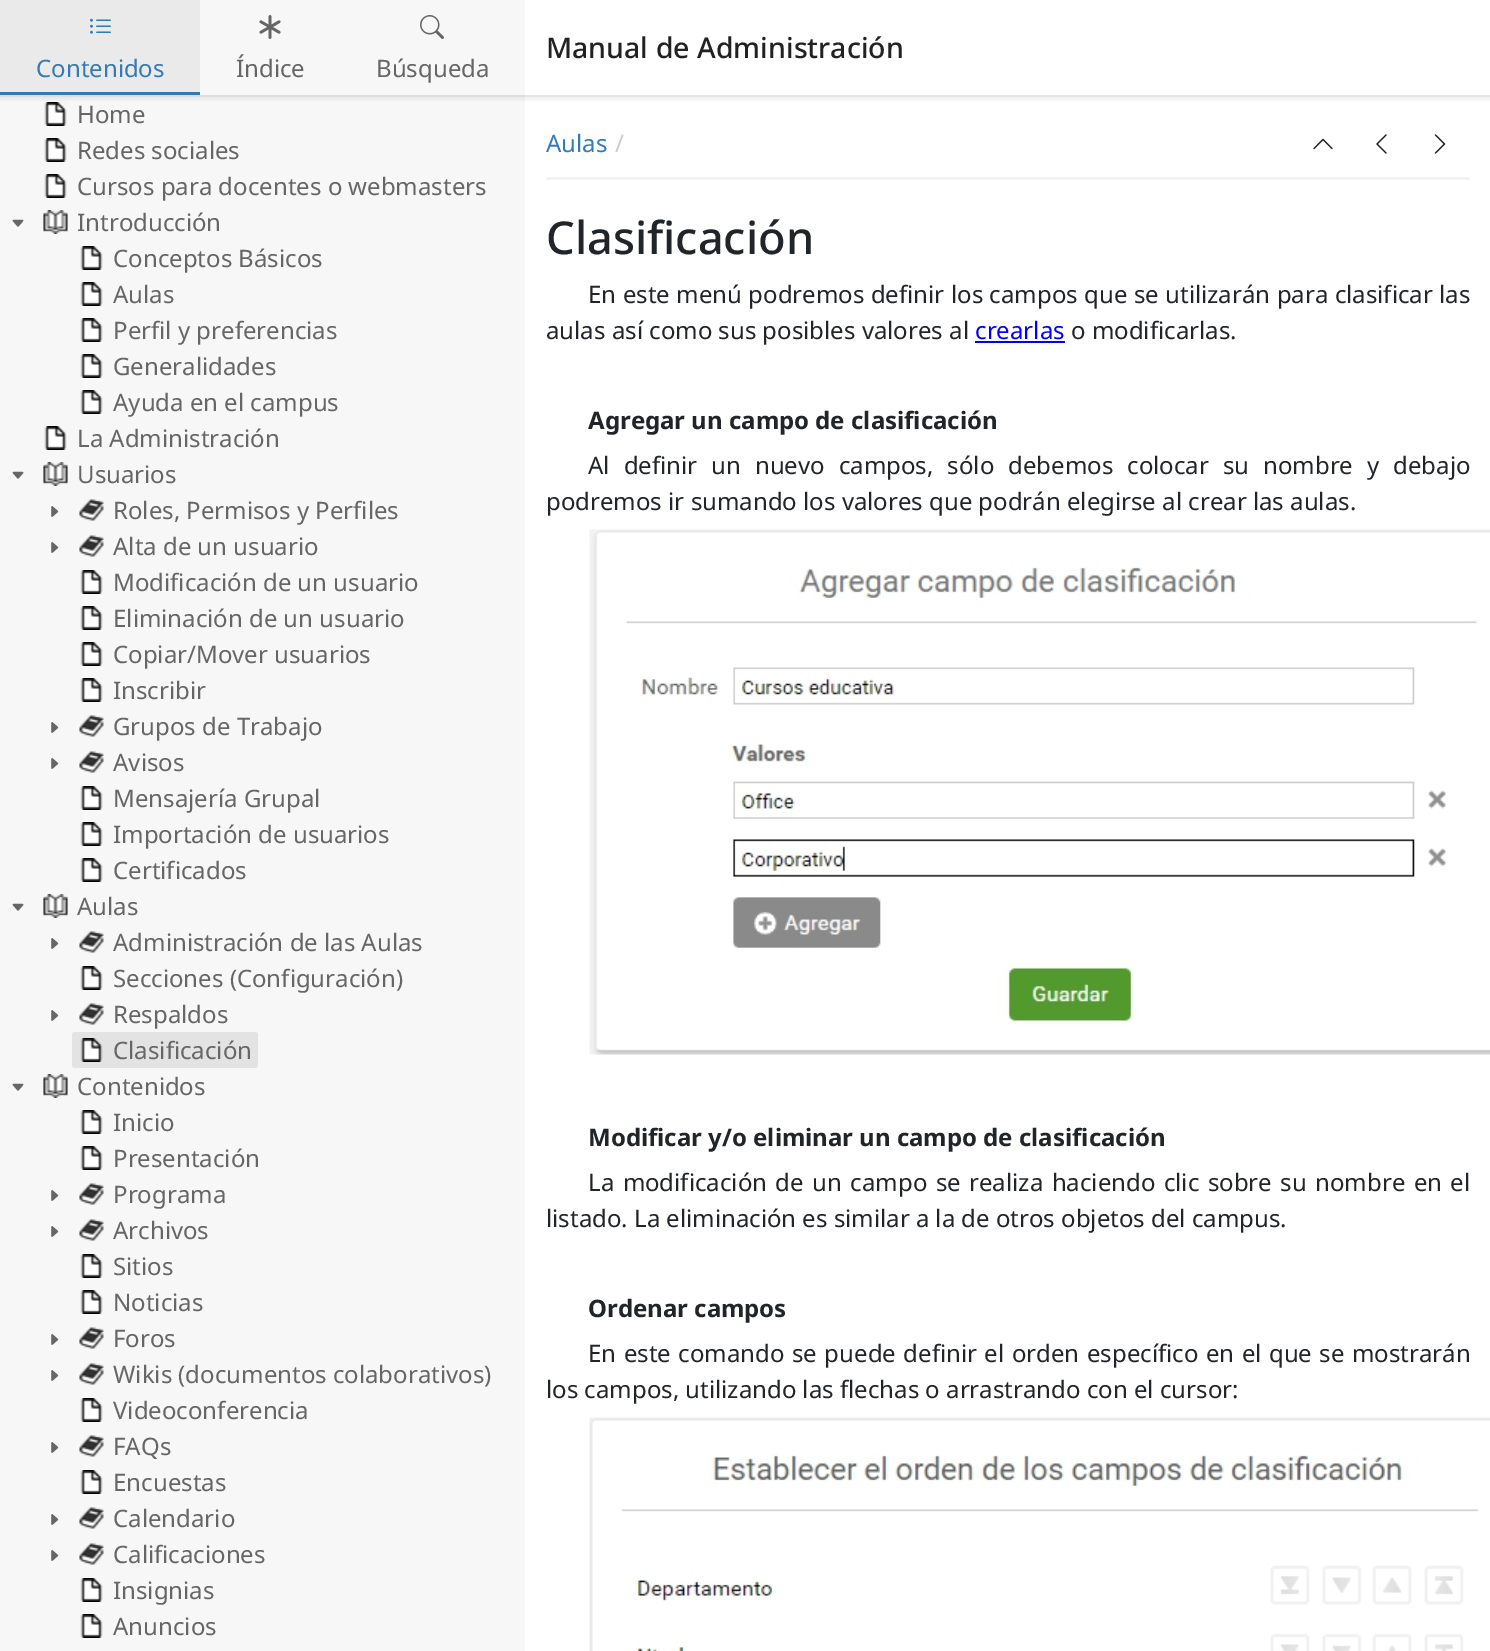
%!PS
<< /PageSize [1490 1651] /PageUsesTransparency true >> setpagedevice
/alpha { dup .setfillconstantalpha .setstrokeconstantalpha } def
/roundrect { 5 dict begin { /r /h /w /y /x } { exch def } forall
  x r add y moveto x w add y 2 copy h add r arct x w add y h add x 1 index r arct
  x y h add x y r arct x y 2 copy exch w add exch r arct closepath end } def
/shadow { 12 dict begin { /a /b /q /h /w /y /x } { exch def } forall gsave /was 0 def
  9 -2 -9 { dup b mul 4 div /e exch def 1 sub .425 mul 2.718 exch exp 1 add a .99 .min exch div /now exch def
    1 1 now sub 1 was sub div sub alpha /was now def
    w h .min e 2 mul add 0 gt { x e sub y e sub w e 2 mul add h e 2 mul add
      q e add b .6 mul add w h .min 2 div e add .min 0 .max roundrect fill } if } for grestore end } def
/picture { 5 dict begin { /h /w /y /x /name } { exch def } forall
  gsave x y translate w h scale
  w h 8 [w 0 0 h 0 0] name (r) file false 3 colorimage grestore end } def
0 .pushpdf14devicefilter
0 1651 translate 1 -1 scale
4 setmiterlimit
1 setgray
0 0 1490 1651 rectfill
gsave
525 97 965 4 rectclip
0 setgray
0 2 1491 96 0 4 0.1 shadow
grestore
0.902 setgray
525 95 965 2 rectfill
/NotoSans-Medium [28.5 0 0 -28.5 0 0] selectfont
0.133 setgray
546 58 moveto (Manual de Administración) show
0.969 setgray
0 0 525 1651 rectfill
gsave
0 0 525 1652 rectclip
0 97 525 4 rectclip
0 setgray
0 2 525 96 0 4 0.1 shadow
grestore
0.871 setgray
0 95 525 2 rectfill
0.918 setgray
0 0 200 92 rectfill
(img1.rgb) 90 18 21 16 picture
/NotoSans-Regular [24 0 0 -24 0 0] selectfont
0.2 0.478 0.718 setrgbcolor
36 77 moveto (Contenidos) show
0 92 200 3 rectfill
(img2.rgb) 259 15 22 24 picture
0.4 setgray
236 77 moveto (Índice) show
(img3.rgb) 420 15 24 24 picture
376 77 moveto (Búsqueda) show
(img4.rgb) 44 102 23 24 picture
77 123 moveto (Home) show
(img5.rgb) 44 138 23 24 picture
77 159 moveto (Redes sociales) show
(img5.rgb) 44 174 23 24 picture
77 195 moveto (Cursos para docentes o webmasters) show
(img6.rgb) 12 219 12 8 picture
(img7.rgb) 43 210 25 24 picture
77 231 moveto (Introducción) show
(img5.rgb) 80 246 23 24 picture
113 267 moveto (Conceptos Básicos) show
(img5.rgb) 80 282 23 24 picture
113 303 moveto (Aulas) show
(img5.rgb) 80 318 23 24 picture
113 339 moveto (Perfil y preferencias) show
(img5.rgb) 80 354 23 24 picture
113 375 moveto (Generalidades) show
(img5.rgb) 80 390 23 24 picture
113 411 moveto (Ayuda en el campus) show
(img5.rgb) 44 426 23 24 picture
77 447 moveto (La Administración) show
(img6.rgb) 12 471 12 8 picture
(img7.rgb) 43 462 25 24 picture
77 483 moveto (Usuarios) show
(img8.rgb) 51 506 8 11 picture
(img9.rgb) 79 499 25 22 picture
113 519 moveto (Roles, Permisos y Perfiles) show
(img8.rgb) 51 542 8 11 picture
(img9.rgb) 79 535 25 22 picture
113 555 moveto (Alta de un usuario) show
(img5.rgb) 80 570 23 24 picture
113 591 moveto (Modificación de un usuario) show
(img5.rgb) 80 606 23 24 picture
113 627 moveto (Eliminación de un usuario) show
(img5.rgb) 80 642 23 24 picture
113 663 moveto (Copiar/Mover usuarios) show
(img5.rgb) 80 678 23 24 picture
113 699 moveto (Inscribir) show
(img8.rgb) 51 722 8 11 picture
(img9.rgb) 79 715 25 22 picture
113 735 moveto (Grupos de Trabajo) show
(img8.rgb) 51 758 8 11 picture
(img9.rgb) 79 751 25 22 picture
113 771 moveto (Avisos) show
(img5.rgb) 80 786 23 24 picture
113 807 moveto (Mensajería Grupal) show
(img5.rgb) 80 822 23 24 picture
113 843 moveto (Importación de usuarios) show
(img5.rgb) 80 858 23 24 picture
113 879 moveto (Certificados) show
(img6.rgb) 12 903 12 8 picture
(img7.rgb) 43 894 25 24 picture
77 915 moveto (Aulas) show
(img8.rgb) 51 938 8 11 picture
(img9.rgb) 79 931 25 22 picture
113 951 moveto (Administración de las Aulas) show
(img5.rgb) 80 966 23 24 picture
113 987 moveto (Secciones \(Configuración\)) show
(img8.rgb) 51 1010 8 11 picture
(img9.rgb) 79 1003 25 22 picture
113 1023 moveto (Respaldos) show
0.89 setgray
72 1032 186 36 3 roundrect fill
(img10.rgb) 80 1038 23 24 picture
0.4 setgray
113 1059 moveto (Clasificación) show
(img6.rgb) 12 1083 12 8 picture
(img7.rgb) 43 1074 25 24 picture
77 1095 moveto (Contenidos) show
(img5.rgb) 80 1110 23 24 picture
113 1131 moveto (Inicio) show
(img5.rgb) 80 1146 23 24 picture
113 1167 moveto (Presentación) show
(img8.rgb) 51 1190 8 11 picture
(img9.rgb) 79 1183 25 22 picture
113 1203 moveto (Programa) show
(img8.rgb) 51 1226 8 11 picture
(img9.rgb) 79 1219 25 22 picture
113 1239 moveto (Archivos) show
(img5.rgb) 80 1254 23 24 picture
113 1275 moveto (Sitios) show
(img5.rgb) 80 1290 23 24 picture
113 1311 moveto (Noticias) show
(img8.rgb) 51 1334 8 11 picture
(img9.rgb) 79 1327 25 22 picture
113 1347 moveto (Foros) show
(img8.rgb) 51 1370 8 11 picture
(img9.rgb) 79 1363 25 22 picture
113 1383 moveto (Wikis \(documentos colaborativos\)) show
(img5.rgb) 80 1398 23 24 picture
113 1419 moveto (Videoconferencia) show
(img8.rgb) 51 1442 8 11 picture
(img9.rgb) 79 1435 25 22 picture
113 1455 moveto (FAQs) show
(img5.rgb) 80 1470 23 24 picture
113 1491 moveto (Encuestas) show
(img8.rgb) 51 1514 8 11 picture
(img9.rgb) 79 1507 25 22 picture
113 1527 moveto (Calendario) show
(img8.rgb) 51 1550 8 11 picture
(img9.rgb) 79 1543 25 22 picture
113 1563 moveto (Calificaciones) show
(img5.rgb) 80 1578 23 24 picture
113 1599 moveto (Insignias) show
(img5.rgb) 80 1614 23 24 picture
113 1635 moveto (Anuncios) show
0.949 setgray
546 177 924 3 rectfill
0.2 0.478 0.718 setrgbcolor
546 152 moveto (Aulas) show
0.8 setgray
615 152 moveto (/) show
(img11.rgb) 1313 138 20 12 picture
(img12.rgb) 1376 134 11 20 picture
(img13.rgb) 1434 134 12 20 picture
/NotoSans-Medium [45.25 0 0 -45.25 0 0] selectfont
0.129 0.145 0.161 setrgbcolor
546 254 moveto (Clasificación) show
/NotoSans-Regular [24 0 0 -24 0 0] selectfont
588 303 moveto 0.2 0 32 (En este menú podremos definir los campos que se utilizarán para clasificar las) widthshow
546 339 moveto (aulas así como sus posibles valores al) show
0 0 1 setrgbcolor
975 339 moveto (crearlas) show
975 341 90 2 rectfill
0.129 0.145 0.161 setrgbcolor
1071 339 moveto (o modificarlas.) show
/NotoSans-Bold [24 0 0 -24 0 0] selectfont
588 429 moveto (Agregar un campo de clasificación) show
/NotoSans-Regular [24 0 0 -24 0 0] selectfont
588 474 moveto 7.75 0 32 (Al definir un nuevo campos, sólo debemos colocar su nombre y debajo) widthshow
546 510 moveto (podremos ir sumando los valores que podrán elegirse al crear las aulas.) show
(img14.rgb) 589 529 901 526 picture
/NotoSans-Bold [24 0 0 -24 0 0] selectfont
588 1146 moveto (Modificar y/o eliminar un campo de clasificación) show
/NotoSans-Regular [24 0 0 -24 0 0] selectfont
588 1191 moveto 2.25 0 32 (La modificación de un campo se realiza haciendo clic sobre su nombre en el) widthshow
546 1227 moveto (listado. La eliminación es similar a la de otros objetos del campus.) show
/NotoSans-Bold [24 0 0 -24 0 0] selectfont
588 1317 moveto (Ordenar campos) show
/NotoSans-Regular [24 0 0 -24 0 0] selectfont
588 1362 moveto 1.25 0 32 (En este comando se puede definir el orden específico en el que se mostrarán) widthshow
546 1398 moveto (los campos, utilizando las flechas o arrastrando con el cursor:) show
(img15.rgb) 589 1417 901 234 picture
.poppdf14devicefilter showpage
